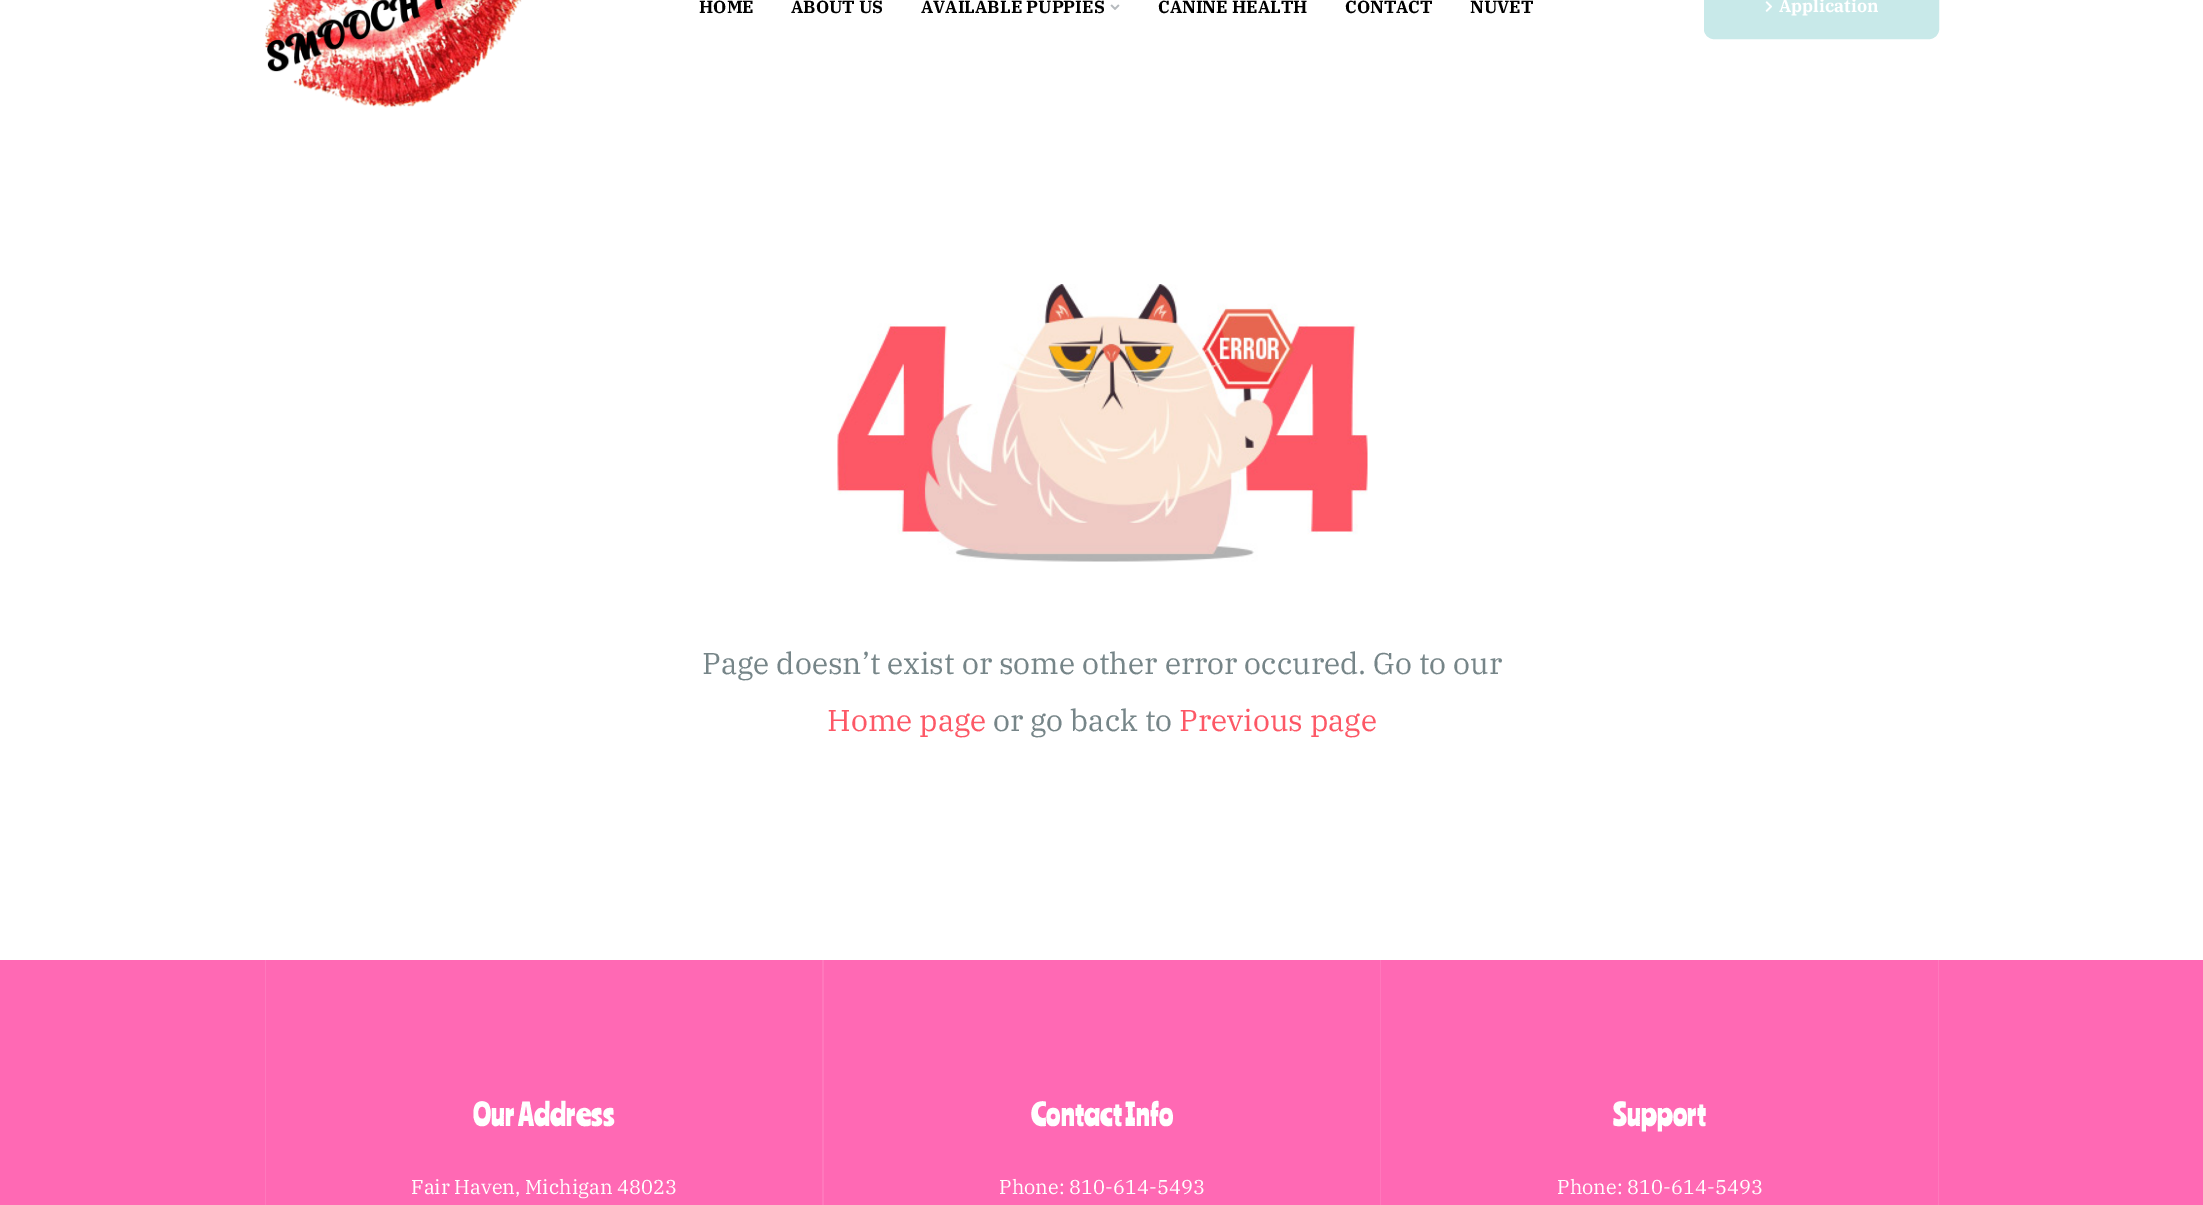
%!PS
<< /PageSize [2203 1205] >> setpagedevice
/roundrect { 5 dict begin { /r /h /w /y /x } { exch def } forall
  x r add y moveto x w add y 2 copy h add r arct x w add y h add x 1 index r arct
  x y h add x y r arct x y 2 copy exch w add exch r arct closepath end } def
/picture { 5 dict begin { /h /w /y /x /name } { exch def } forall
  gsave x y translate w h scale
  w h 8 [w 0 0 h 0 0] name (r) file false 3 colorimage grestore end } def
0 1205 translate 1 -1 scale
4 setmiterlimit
1 setgray
0 0 2203 1205 rectfill
(img1.rgb) 265 0 257 108 picture
/IBMPlexSerif-Bold [17.5 0 0 -17.5 0 0] selectfont
0 setgray
699 13 moveto (HOME) show
791 13 moveto (ABOUT US) show
921 13 moveto (AVAILABLE PUPPIES) show
(img2.rgb) 1110 4 10 6 picture
1158 13 moveto (CANINE HEALTH) show
1345 13 moveto (CONTACT) show
1470 13 moveto (NUVET) show
0.784 0.914 0.914 setrgbcolor
1704.5 -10.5 234 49 9.5 roundrect gsave fill grestore
stroke
(img3.rgb) 1765 1 7 11 picture
1 setgray
1779 12 moveto (Application) show
(img4.rgb) 837 284 531 278 picture
/IBMPlexSerif-Regular [30 0 0 -30 0 0] selectfont
0.463 0.522 0.533 setrgbcolor
702 674 moveto (Page doesn’t exist or some other error occured. Go to our) show
0.992 0.345 0.4 setrgbcolor
827 731 moveto (Home page) show
0.463 0.522 0.533 setrgbcolor
993 731 moveto (or go back to) show
0.992 0.345 0.4 setrgbcolor
1179 731 moveto (Previous page) show
1 0.412 0.706 setrgbcolor
0 960 2203 245 rectfill
1 0.471 0.737 setrgbcolor
newpath 265 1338 moveto 265 960 lineto 266 960 lineto 266 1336 lineto closepath fill
/Ranchers-Regular [30 0 0 -30 0 0] selectfont
1 setgray
473 1126 moveto (Our Address) show
/IBMPlexSerif-Regular [20 0 0 -20 0 0] selectfont
411 1194 moveto (Fair Haven, Michigan 48023) show
1 0.471 0.737 setrgbcolor
newpath 1381 960 moveto 1381 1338 lineto 1380 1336 lineto 1380 960 lineto closepath fill
newpath 822 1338 moveto 822 960 lineto 824 960 lineto 824 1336 lineto closepath fill
/Ranchers-Regular [30 0 0 -30 0 0] selectfont
1 setgray
1031 1126 moveto (Contact Info) show
/IBMPlexSerif-Regular [20 0 0 -20 0 0] selectfont
999 1194 moveto (Phone: 810-614-5493) show
1 0.471 0.737 setrgbcolor
newpath 1939 960 moveto 1939 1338 lineto 1938 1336 lineto 1938 960 lineto closepath fill
/Ranchers-Regular [30 0 0 -30 0 0] selectfont
1 setgray
1613 1126 moveto (Support) show
/IBMPlexSerif-Regular [20 0 0 -20 0 0] selectfont
1557 1194 moveto (Phone: 810-614-5493) show
showpage
